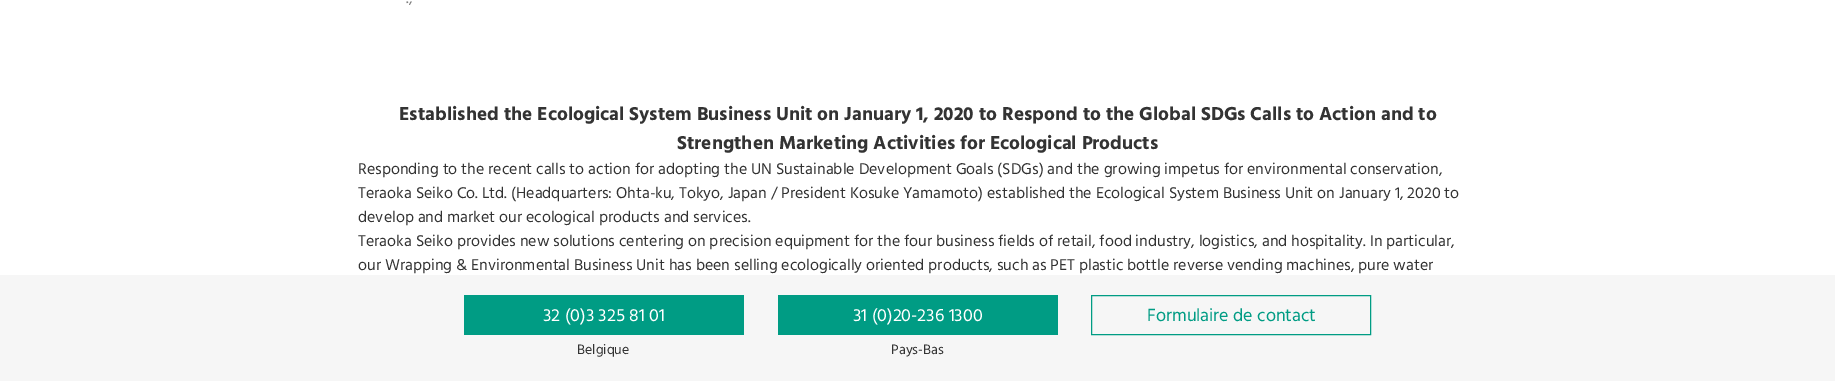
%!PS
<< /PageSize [1835 381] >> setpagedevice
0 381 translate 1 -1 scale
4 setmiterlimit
1 setgray
0 0 1835 381 rectfill
/Hind-Regular [16 0 0 -16 0 0] selectfont
0.502 setgray
406 3 moveto (.,) show
/Hind-Bold [19.2 0 0 -19.2 0 0] selectfont
0.2 setgray
399 120 moveto (Established the Ecological System Business Unit on January 1, 2020 to Respond to the Global SDGs Calls to Action and to) show
677 149 moveto (Strengthen Marketing Activities for Ecological Products) show
/Hind-Regular [16 0 0 -16 0 0] selectfont
358 174 moveto (Responding to the recent calls to action for adopting the UN Sustainable Development Goals \(SDGs\) and the growing impetus for environmental conservation,) show
358 198 moveto (Teraoka Seiko Co. Ltd. \(Headquarters: Ohta-ku, Tokyo, Japan / President Kosuke Yamamoto\) established the Ecological System Business Unit on January 1, 2020 to) show
358 222 moveto (develop and market our ecological products and services.) show
358 246 moveto (Teraoka Seiko provides new solutions centering on precision equipment for the four business fields of retail, food industry, logistics, and hospitality. In particular,) show
358 270 moveto (our Wrapping & Environmental Business Unit has been selling ecologically oriented products, such as PET plastic bottle reverse vending machines, pure water) show
0.965 setgray
0 275 1835 106 rectfill
0 0.612 0.518 setrgbcolor
464 295 280 40 rectfill
/Hind-Regular [18 0 0 -18 0 0] selectfont
1 setgray
543 321 moveto (32 \(0\)3 325 81 01) show
/Hind-Regular [14 0 0 -14 0 0] selectfont
0.2 setgray
577 354 moveto (Belgique) show
0 0.612 0.518 setrgbcolor
778 295 280 40 rectfill
/Hind-Regular [18 0 0 -18 0 0] selectfont
1 setgray
853 321 moveto (31 \(0\)20-236 1300) show
/Hind-Regular [14 0 0 -14 0 0] selectfont
0.2 setgray
891 354 moveto (Pays-Bas) show
0 0.612 0.518 setrgbcolor
1091.5 295.5 279 39 rectstroke
/Hind-Regular [18 0 0 -18 0 0] selectfont
1147 321 moveto (Formulaire de contact) show
showpage
